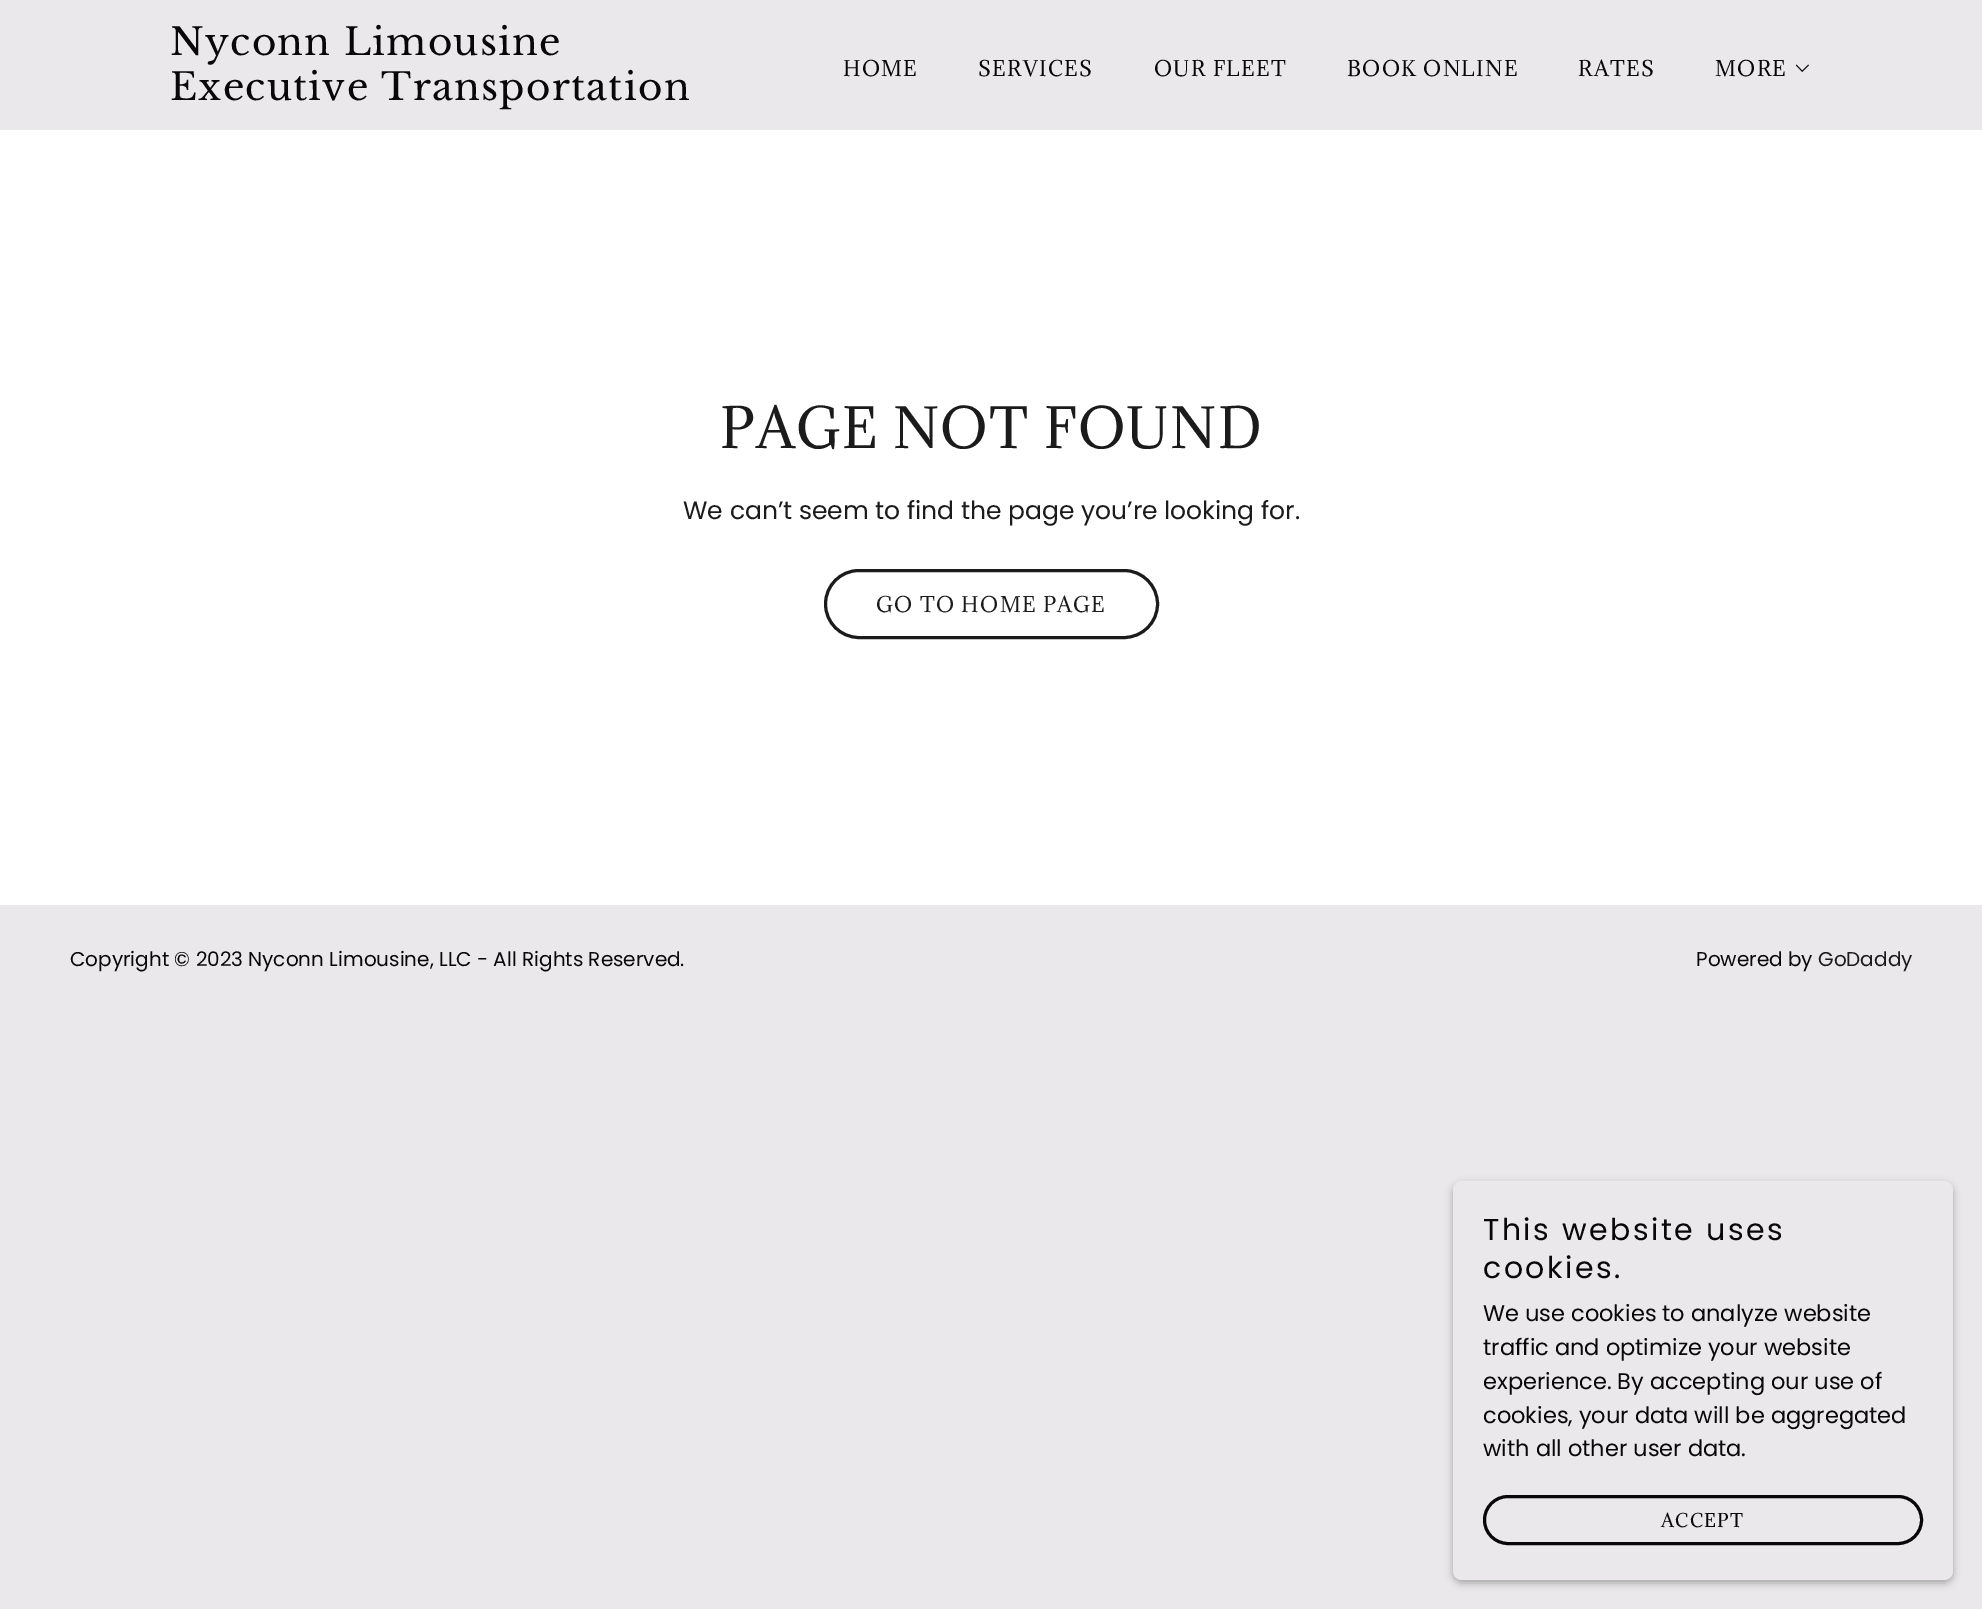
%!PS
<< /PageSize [1982 1609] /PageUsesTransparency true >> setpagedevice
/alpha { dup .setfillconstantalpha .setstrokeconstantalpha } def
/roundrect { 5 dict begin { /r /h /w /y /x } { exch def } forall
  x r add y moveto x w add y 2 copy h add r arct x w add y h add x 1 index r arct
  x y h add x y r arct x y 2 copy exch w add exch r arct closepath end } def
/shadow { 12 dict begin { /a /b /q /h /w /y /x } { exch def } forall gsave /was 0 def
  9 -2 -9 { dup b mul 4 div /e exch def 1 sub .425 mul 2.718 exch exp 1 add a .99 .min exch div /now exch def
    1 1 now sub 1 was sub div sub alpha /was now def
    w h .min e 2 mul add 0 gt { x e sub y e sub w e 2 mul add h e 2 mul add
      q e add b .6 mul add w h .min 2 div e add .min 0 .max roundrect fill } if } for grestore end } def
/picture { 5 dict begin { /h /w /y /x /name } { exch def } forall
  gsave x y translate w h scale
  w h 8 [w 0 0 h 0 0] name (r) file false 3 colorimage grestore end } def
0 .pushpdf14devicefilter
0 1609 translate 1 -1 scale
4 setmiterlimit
0.918 0.91 0.918 setrgbcolor
0 0 1982 1609 rectfill
/LibreBaskerville-Regular [37.5 0 0 -37.5 0 0] selectfont
0.031 setgray
170 55 moveto 1.25 0 (Nyconn Limousine) ashow
170 100 moveto 1.25 0 (Executive Transportation) ashow
/Adamina-Regular [20 0 0 -20 0 0] selectfont
843 76 moveto 1.25 0 (HOME) ashow
978 76 moveto 1.25 0 (SERVICES) ashow
1154 76 moveto 1.25 0 (OUR FLEET) ashow
1347 76 moveto 1.25 0 (BOOK ONLINE) ashow
1578 76 moveto 1.25 0 (RATES) ashow
1715 76 moveto 1.25 0 (MORE) ashow
(img1.rgb) 1795 64 14 8 picture
1 setgray
0 130 1982 775 rectfill
/Adamina-Regular [52.5 0 0 -52.5 0 0] selectfont
0.106 setgray
720 448 moveto 1.25 0 (PAGE NOT FOUND) ashow
/Poppins-Regular [25 0 0 -25 0 0] selectfont
683 519 moveto (We can’t seem to find the page you’re looking for.) show
3 setlinewidth
825.5 570.5 332 67 33.5 roundrect stroke
/Adamina-Regular [20 0 0 -20 0 0] selectfont
876 612 moveto 1.25 0 (GO TO HOME PAGE) ashow
/Poppins-Regular [20 0 0 -20 0 0] selectfont
0.031 setgray
70 966 moveto (Copyright © 2023 Nyconn Limousine, LLC - All Rights Reserved.) show
1696 966 moveto (Powered by) show
0.106 setgray
1818 966 moveto (GoDaddy) show
0 setgray
1453 1184 500 399 9 4 0.3 shadow
0.918 0.91 0.918 setrgbcolor
1453 1181 500 399 9 roundrect fill
/Poppins-Regular [30 0 0 -30 0 0] selectfont
0.031 setgray
1483 1240 moveto 2.5 0 (This website uses) ashow
1483 1278 moveto 2.5 0 (cookies.) ashow
/Poppins-Regular [22.5 0 0 -22.5 0 0] selectfont
1483 1321 moveto (We use cookies to analyze website) show
1483 1355 moveto (traffic and optimize your website) show
1483 1389 moveto (experience. By accepting our use of) show
1483 1423 moveto (cookies, your data will be aggregated) show
1483 1456 moveto (with all other user data.) show
1484.5 1496.5 437 47 23.5 roundrect stroke
/Adamina-Regular [17.5 0 0 -17.5 0 0] selectfont
1661 1527 moveto 1.25 0 (ACCEPT) ashow
.poppdf14devicefilter showpage
